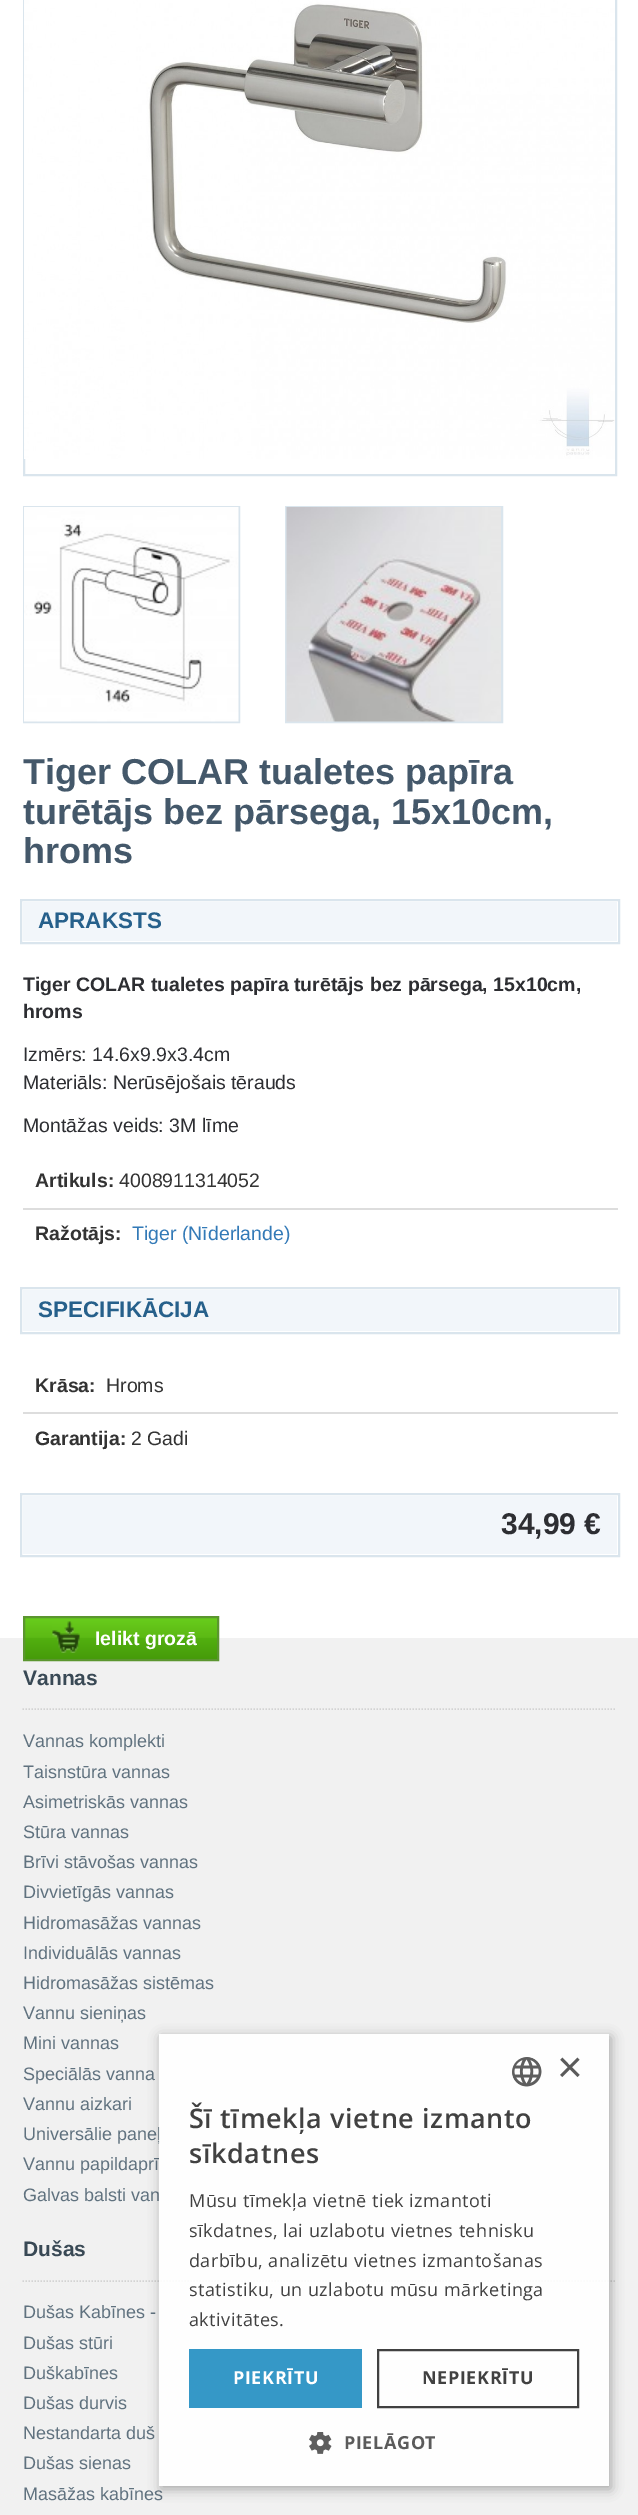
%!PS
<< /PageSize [638 2515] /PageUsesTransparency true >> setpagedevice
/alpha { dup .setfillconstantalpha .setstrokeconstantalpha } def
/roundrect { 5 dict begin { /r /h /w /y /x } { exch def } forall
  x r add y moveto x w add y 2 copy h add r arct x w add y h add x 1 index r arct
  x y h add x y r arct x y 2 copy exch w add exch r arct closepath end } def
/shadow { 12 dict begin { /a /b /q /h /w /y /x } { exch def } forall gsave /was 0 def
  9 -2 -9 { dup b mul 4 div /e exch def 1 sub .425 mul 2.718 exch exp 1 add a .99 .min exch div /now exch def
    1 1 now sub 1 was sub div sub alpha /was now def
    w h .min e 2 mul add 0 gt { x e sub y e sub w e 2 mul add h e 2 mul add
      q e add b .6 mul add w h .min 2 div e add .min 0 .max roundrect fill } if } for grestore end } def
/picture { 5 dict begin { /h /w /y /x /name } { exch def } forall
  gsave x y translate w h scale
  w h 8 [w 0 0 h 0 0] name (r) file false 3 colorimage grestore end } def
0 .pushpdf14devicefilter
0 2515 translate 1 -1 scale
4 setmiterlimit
1 setgray
0 0 638 2515 rectfill
0.855 0.898 0.929 setrgbcolor
2 setlinewidth
24 -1 592 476 rectstroke
(img1.rgb) 24 0 591 459 picture
24 507 215 215 rectstroke
(img2.rgb) 24 507 215 215 picture
286 507 216 215 rectstroke
(img3.rgb) 286 507 215 215 picture
/LiberationSans-Bold [36 0 0 -36 0 0] selectfont
0.267 0.345 0.416 setrgbcolor
23 784 moveto (Tiger COLAR tualetes papīra) show
23 824 moveto (turētājs bez pārsega, 15x10cm,) show
23 863 moveto (hroms) show
0.949 0.965 0.98 setrgbcolor
23 902 594 39 rectfill
0.855 0.898 0.929 setrgbcolor
21 900 598 43 rectstroke
/LiberationSans-Bold [22.5 0 0 -22.5 0 0] selectfont
0.149 0.376 0.545 setrgbcolor
38 928 moveto (APRAKSTS) show
/LiberationSans-Bold [19.5 0 0 -19.5 0 0] selectfont
0.176 0.18 0.196 setrgbcolor
23 991 moveto (Tiger COLAR tualetes papīra turētājs bez pārsega, 15x10cm,) show
23 1018 moveto (hroms) show
/LiberationSans-Regular [19.5 0 0 -19.5 0 0] selectfont
23 1061 moveto (Izmērs: 14.6x9.9x3.4cm) show
23 1089 moveto (Materiāls: Nerūsējošais tērauds) show
23 1132 moveto (Montāžas veids: 3M līme) show
/LiberationSans-Bold [19.5 0 0 -19.5 0 0] selectfont
0.2 setgray
35 1187 moveto (Artikuls:) show
/LiberationSans-Regular [19.5 0 0 -19.5 0 0] selectfont
119 1187 moveto (4008911314052) show
0.867 setgray
23 1208 595 2 rectfill
/LiberationSans-Bold [19.5 0 0 -19.5 0 0] selectfont
0.2 setgray
35 1240 moveto (Ražotājs:) show
/LiberationSans-Regular [19.5 0 0 -19.5 0 0] selectfont
0.2 0.478 0.718 setrgbcolor
132 1240 moveto (Tiger \(Nīderlande\)) show
0.949 0.965 0.98 setrgbcolor
23 1290 594 41 rectfill
0.855 0.898 0.929 setrgbcolor
21 1288 598 45 rectstroke
/LiberationSans-Bold [22.5 0 0 -22.5 0 0] selectfont
0.149 0.376 0.545 setrgbcolor
38 1317 moveto (SPECIFIKĀCIJA) show
/LiberationSans-Bold [19.5 0 0 -19.5 0 0] selectfont
0.2 setgray
35 1392 moveto (Krāsa:) show
/LiberationSans-Regular [19.5 0 0 -19.5 0 0] selectfont
106 1392 moveto (Hroms) show
0.867 setgray
23 1412 595 2 rectfill
/LiberationSans-Bold [19.5 0 0 -19.5 0 0] selectfont
0.2 setgray
35 1445 moveto (Garantija:) show
/LiberationSans-Regular [19.5 0 0 -19.5 0 0] selectfont
131 1445 moveto (2 Gadi) show
0.949 0.965 0.98 setrgbcolor
23 1496 594 58 rectfill
0.855 0.898 0.929 setrgbcolor
21 1494 598 62 rectstroke
/LiberationSans-Bold [30 0 0 -30 0 0] selectfont
0.176 0.18 0.196 setrgbcolor
501 1534 moveto (34,99 €) show
0.945 setgray
0 1638 638 877 rectfill
gsave newpath 25 1618 moveto 217 1618 lineto 217 1659 lineto 25 1659 lineto closepath clip newpath
<< /ShadingType 2 /ColorSpace /DeviceRGB /Coords [121 1617 121 1659] /Extend [true true] /Function << /FunctionType 3 /Domain [0 1] /Functions [<< /FunctionType 2 /Domain [0 1] /C0 [0.412 0.808 0.11] /C1 [0.361 0.725 0.082] /N 1 >> << /FunctionType 2 /Domain [0 1] /C0 [0.361 0.725 0.082] /C1 [0.322 0.686 0.059] /N 1 >> << /FunctionType 2 /Domain [0 1] /C0 [0.322 0.686 0.059] /C1 [0.275 0.608 0.039] /N 1 >>] /Bounds [0.49 0.51] /Encode [0 1 0 1 0 1] >> >> shfill grestore
0.357 0.588 0.184 setrgbcolor
24 1617 194 43 rectstroke
(img4.rgb) 52 1621 28 32 picture
/LiberationSans-Bold [19.5 0 0 -19.5 0 0] selectfont
1 setgray
95 1645 moveto (Ielikt grozā) show
0.827 setgray
1.5 setlinewidth
[1.5 1.5] 0 setdash
newpath 22.5 1709 moveto 616.5 1709 lineto stroke
/LiberationSans-Bold [21 0 0 -21 0 0] selectfont
0.224 0.286 0.333 setrgbcolor
23 1685 moveto (Vannas) show
/LiberationSans-Regular [18 0 0 -18 0 0] selectfont
0.376 0.447 0.498 setrgbcolor
23 1747 moveto (Vannas komplekti) show
23 1778 moveto (Taisnstūra vannas) show
23 1808 moveto (Asimetriskās vannas) show
23 1838 moveto (Stūra vannas) show
23 1868 moveto (Brīvi stāvošas vannas) show
23 1898 moveto (Divvietīgās vannas) show
23 1929 moveto (Hidromasāžas vannas) show
23 1959 moveto (Individuālās vannas) show
23 1989 moveto (Hidromasāžas sistēmas) show
23 2019 moveto (Vannu sieniņas) show
23 2049 moveto (Mini vannas) show
23 2080 moveto (Speciālās vanna) show
23 2110 moveto (Vannu aizkari) show
23 2140 moveto (Universālie paneļ) show
23 2170 moveto (Vannu papildaprī) show
23 2201 moveto (Galvas balsti van) show
0.827 setgray
newpath 22.5 2281 moveto 616.5 2281 lineto stroke
/LiberationSans-Bold [21 0 0 -21 0 0] selectfont
0.224 0.286 0.333 setrgbcolor
23 2256 moveto (Dušas) show
/LiberationSans-Regular [18 0 0 -18 0 0] selectfont
0.376 0.447 0.498 setrgbcolor
23 2318 moveto (Dušas Kabīnes -) show
23 2349 moveto (Dušas stūri) show
23 2379 moveto (Duškabīnes) show
23 2409 moveto (Dušas durvis) show
23 2439 moveto (Nestandarta duš) show
23 2469 moveto (Dušas sienas) show
23 2500 moveto (Masāžas kabīnes) show
gsave
newpath 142 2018 moveto 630 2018 lineto 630 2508 lineto 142 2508 lineto closepath 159 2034 moveto 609 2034 lineto 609 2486 lineto 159 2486 lineto closepath eoclip newpath
0 setgray
161 2037 450 452 0 6 0.32 shadow
grestore
0.9 alpha
1 setgray
159 2034 450 452 rectfill
1 alpha
(img5.rgb) 512 2057 30 30 picture
/LiberationSans-Regular [44 0 0 -44 0 0] selectfont
0.357 setgray
557 2082 moveto (×) show
/OpenSans-SemiBold [27 0 0 -27 0 0] selectfont
0.255 setgray
189 2128 moveto 0.6 0 (Šī tīmekļa vietne izmanto) ashow
189 2163 moveto 0.6 0 (sīkdatnes) ashow
/OpenSans-Regular [18 0 0 -18 0 0] selectfont
189 2207 moveto 0.45 0 (Mūsu tīmekļa vietnē tiek izmantoti) ashow
189 2237 moveto 0.45 0 (sīkdatnes, lai uzlabotu vietnes tehnisku) ashow
189 2267 moveto 0.45 0 (darbību, analizētu vietnes izmantošanas) ashow
189 2296 moveto 0.45 0 (statistiku, un uzlabotu mūsu mārketinga) ashow
189 2326 moveto 0.45 0 (aktivitātes.) ashow
0.208 0.596 0.78 setrgbcolor
189 2349 173 59 rectfill
/OpenSans-Bold [18 0 0 -18 0 0] selectfont
1 setgray
233 2384 moveto 0.6 0 (PIEKRĪTU) ashow
0.255 setgray
2 setlinewidth
[] 0 setdash
378 2350 200 57 rectstroke
422 2384 moveto 0.6 0 (NEPIEKRĪTU) ashow
(img6.rgb) 309 2432 23 22 picture
0.357 setgray
344 2449 moveto 0.6 0 (PIELĀGOT) ashow
.poppdf14devicefilter showpage
